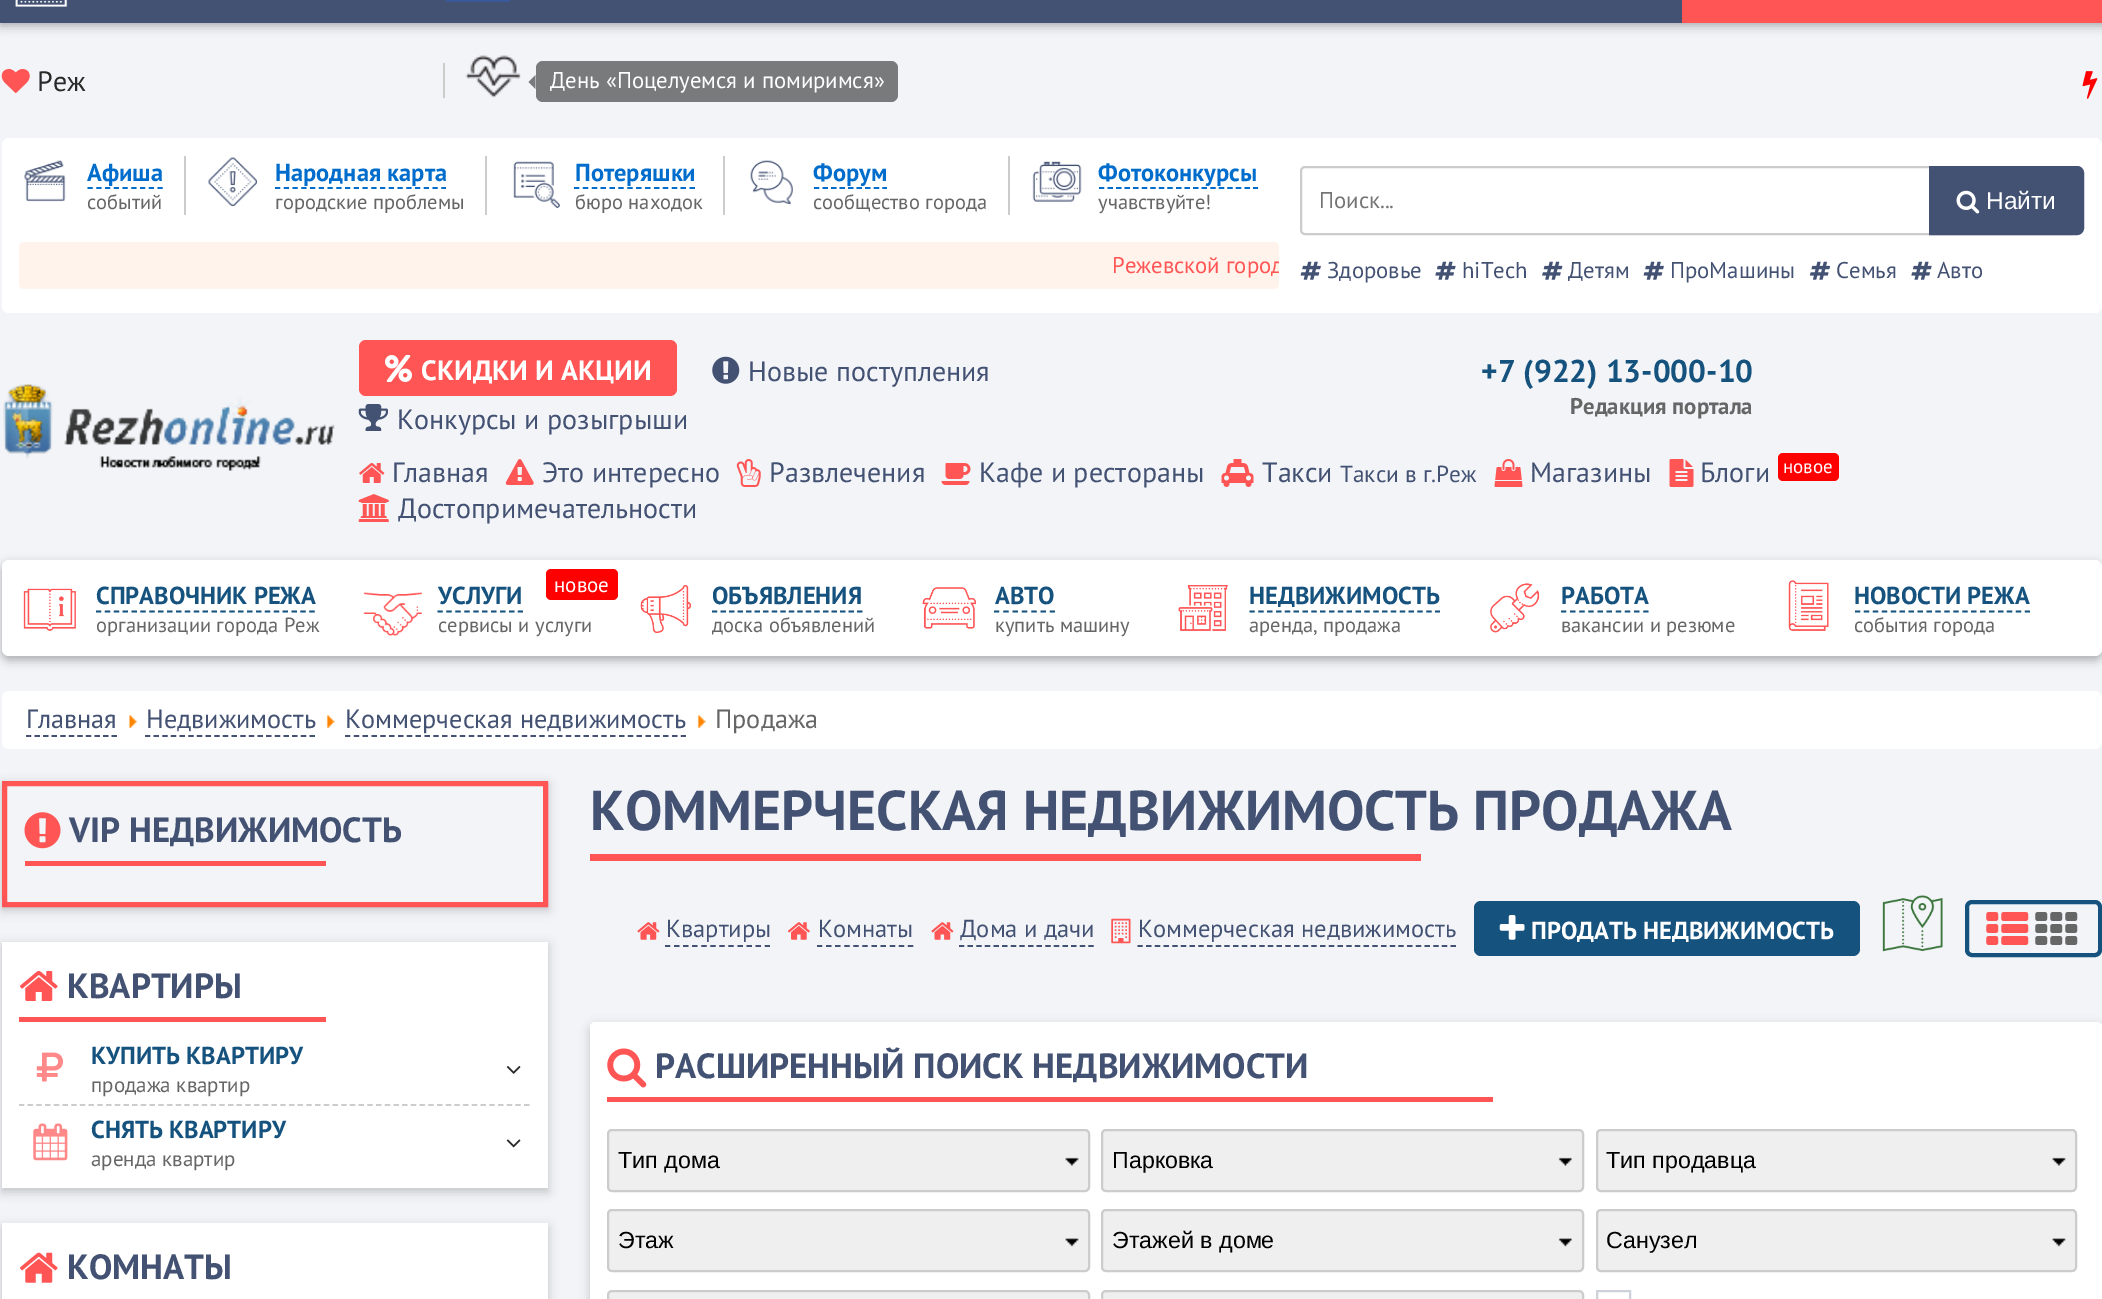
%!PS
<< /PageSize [2102 1299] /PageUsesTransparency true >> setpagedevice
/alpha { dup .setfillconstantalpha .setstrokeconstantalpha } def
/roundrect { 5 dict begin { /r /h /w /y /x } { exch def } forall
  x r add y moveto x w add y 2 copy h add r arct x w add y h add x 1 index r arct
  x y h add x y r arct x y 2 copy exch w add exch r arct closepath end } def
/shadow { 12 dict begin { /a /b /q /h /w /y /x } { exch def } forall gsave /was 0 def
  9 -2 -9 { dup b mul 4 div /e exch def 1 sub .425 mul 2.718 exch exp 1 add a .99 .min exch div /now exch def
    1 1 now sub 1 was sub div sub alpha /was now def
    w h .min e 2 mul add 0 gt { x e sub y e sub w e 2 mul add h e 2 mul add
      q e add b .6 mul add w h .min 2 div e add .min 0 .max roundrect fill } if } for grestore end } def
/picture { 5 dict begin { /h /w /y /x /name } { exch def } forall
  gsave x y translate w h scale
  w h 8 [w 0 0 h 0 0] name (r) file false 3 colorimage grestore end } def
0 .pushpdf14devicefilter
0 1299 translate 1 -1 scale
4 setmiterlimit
0.949 0.957 0.969 setrgbcolor
0 0 2102 1299 rectfill
0 setgray
0 -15 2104 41 0 5 0.3 shadow
0.263 0.318 0.451 setrgbcolor
0 0 1682 23 rectfill
0.231 0.349 0.596 setrgbcolor
443 -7 70 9 7 roundrect fill
(img1.rgb) 15 0 53 7 picture
1 0.333 0.333 setrgbcolor
1682 0 420 23 rectfill
0.8 setgray
443 63 2 35 rectfill
(img2.rgb) 1 69 29 24 picture
/PTSans-Regular [28 0 0 -28 0 0] selectfont
0.165 setgray
37 91 moveto (Реж) show
(img3.rgb) 465 55 56 43 picture
0.475 0.478 0.486 setrgbcolor
536 61 362 41 7 roundrect fill
newpath 535.5 75 moveto 535.5 89 lineto 528.5 82 lineto closepath fill
/PTSans-Regular [22.75 0 0 -22.75 0 0] selectfont
1 setgray
550 88 moveto (День «Поцелуемся и помиримся») show
(img4.rgb) 2082 71 16 28 picture
2 138 2100 175 7 roundrect fill
0.8 setgray
184 156 2 59 rectfill
(img5.rgb) 24 160 42 42 picture
/PTSans-Bold [24.5 0 0 -24.5 0 0] selectfont
0 0.427 0.8 setrgbcolor
87 181 moveto (Афиша) show
1.8 setlinewidth
[5.25 3.5] 0 setdash
newpath 87.5 188 moveto 163 188 lineto stroke
/PTSans-Regular [20.5 0 0 -20.5 0 0] selectfont
0.4 setgray
87 209 moveto (событий) show
0.8 setgray
485 156 2 59 rectfill
(img6.rgb) 208 157 50 50 picture
/PTSans-Bold [24.5 0 0 -24.5 0 0] selectfont
0 0.427 0.8 setrgbcolor
275 181 moveto (Народная карта) show
newpath 275 188 moveto 446 188 lineto stroke
/PTSans-Regular [20.5 0 0 -20.5 0 0] selectfont
0.4 setgray
275 209 moveto (городские проблемы) show
0.8 setgray
723 156 2 59 rectfill
(img7.rgb) 513 161 47 47 picture
/PTSans-Bold [24.5 0 0 -24.5 0 0] selectfont
0 0.427 0.8 setrgbcolor
575 181 moveto (Потеряшки) show
[5.25 3.64] 0 setdash
newpath 574 188 moveto 695 188 lineto stroke
/PTSans-Regular [20.5 0 0 -20.5 0 0] selectfont
0.4 setgray
575 209 moveto (бюро находок) show
0.8 setgray
1008 156 2 59 rectfill
(img8.rgb) 750 160 43 45 picture
/PTSans-Bold [24.5 0 0 -24.5 0 0] selectfont
0 0.427 0.8 setrgbcolor
813 181 moveto (Форум) show
[5.25 3.29] 0 setdash
newpath 814 188 moveto 887 188 lineto stroke
/PTSans-Regular [20.5 0 0 -20.5 0 0] selectfont
0.4 setgray
813 209 moveto (сообщество города) show
(img9.rgb) 1032 161 50 41 picture
/PTSans-Bold [24.5 0 0 -24.5 0 0] selectfont
0 0.427 0.8 setrgbcolor
1098 181 moveto (Фотоконкурсы) show
[5.25 3.31] 0 setdash
newpath 1099 188 moveto 1258 188 lineto stroke
/PTSans-Regular [20.5 0 0 -20.5 0 0] selectfont
0.4 setgray
1098 209 moveto (учавствуйте!) show
1 0.953 0.922 setrgbcolor
19 242 1260 47 5 roundrect fill
gsave
19 242 1260 47 5 roundrect clip newpath
/PTSans-Regular [22.75 0 0 -22.75 0 0] selectfont
1 0.333 0.333 setrgbcolor
1112 273 moveto (Режевской город) show
grestore
0.8 setgray
2 setlinewidth
[] 0 setdash
1301 167 775 67 4 roundrect stroke
/PTSans-Regular [22.75 0 0 -22.75 0 0] selectfont
0.459 setgray
1319 208 moveto (Поиск...) show
0.263 0.318 0.451 setrgbcolor
newpath 1930 167 moveto 2077 167 lineto 2080.5 167 2083 169.5 2083 173 curveto 2083 228 lineto 2083 231.5 2080.5 234 2077 234 curveto 1930 234 lineto closepath gsave fill grestore
stroke
(img10.rgb) 1956 190 24 24 picture
/LiberationSans-Regular [24.5 0 0 -24.5 0 0] selectfont
1 setgray
1986 209 moveto (Найти) show
(img11.rgb) 1300 261 21 19 picture
/PTSans-Regular [22.75 0 0 -22.75 0 0] selectfont
0.263 0.318 0.451 setrgbcolor
1327 278 moveto (Здоровье) show
(img12.rgb) 1435 261 21 19 picture
1462 278 moveto (hiTech) show
(img13.rgb) 1542 261 21 19 picture
1568 278 moveto (Детям) show
(img11.rgb) 1643 261 21 19 picture
1670 278 moveto (ПроМашины) show
(img14.rgb) 1809 261 22 19 picture
1836 278 moveto (Семья) show
(img12.rgb) 1911 261 21 19 picture
1937 278 moveto (Авто) show
(img15.rgb) 3 384 332 87 picture
1 0.333 0.333 setrgbcolor
359 340 318 56 7 roundrect fill
(img16.rgb) 385 355 27 27 picture
/PTSans-Bold [28 0 0 -28 0 0] selectfont
1 setgray
421 380 moveto (СКИДКИ И АКЦИИ) show
(img17.rgb) 712 356 28 28 picture
/PTSans-Regular [28 0 0 -28 0 0] selectfont
0.263 0.318 0.451 setrgbcolor
748 381 moveto (Новые поступления) show
(img18.rgb) 358 404 30 27 picture
397 429 moveto (Конкурсы и розыгрыши) show
/PTSans-Bold [31.5 0 0 -31.5 0 0] selectfont
0.082 0.322 0.494 setrgbcolor
1481 382 moveto (+7 \(922\) 13-000-10) show
/PTSans-Bold [22.75 0 0 -22.75 0 0] selectfont
0.4 setgray
1570 414 moveto (Редакция портала) show
(img19.rgb) 359 463 26 20 picture
/PTSans-Regular [28 0 0 -28 0 0] selectfont
0.263 0.318 0.451 setrgbcolor
392 482 moveto (Главная) show
(img20.rgb) 505 459 29 26 picture
542 482 moveto (Это интересно) show
(img21.rgb) 736 459 25 28 picture
769 482 moveto (Развлечения) show
(img22.rgb) 941 463 30 22 picture
979 482 moveto (Кафе и рестораны) show
(img23.rgb) 1221 459 33 28 picture
1262 482 moveto (Такси) show
/PTSans-Regular [23.25 0 0 -23.25 0 0] selectfont
1340 482 moveto (Такси в г.Реж) show
(img24.rgb) 1494 459 29 28 picture
/PTSans-Regular [28 0 0 -28 0 0] selectfont
1530 482 moveto (Магазины) show
(img25.rgb) 1669 459 25 28 picture
1700 482 moveto (Блоги) show
1 0 0 setrgbcolor
1778 453 61 28 5 roundrect fill
/PTSans-Regular [19 0 0 -19 0 0] selectfont
1 setgray
1783 473 moveto (новое) show
(img26.rgb) 358 494 31 28 picture
/PTSans-Regular [28 0 0 -28 0 0] selectfont
0.263 0.318 0.451 setrgbcolor
398 518 moveto (Достопримечательности) show
0 setgray
2 564 2100 96 7 5 0.3 shadow
1 setgray
2 560 2100 96 7 roundrect fill
(img27.rgb) 23 588 53 43 picture
/PTSans-Bold [24.5 0 0 -24.5 0 0] selectfont
0.082 0.322 0.494 setrgbcolor
96 604 moveto (СПРАВОЧНИК РЕЖА) show
1.8 setlinewidth
[5.25 3.64] 0 setdash
newpath 96 611.5 moveto 315 611.5 lineto stroke
/PTSans-Regular [20.5 0 0 -20.5 0 0] selectfont
0.4 setgray
96 632 moveto (организации города Реж) show
1 0 0 setrgbcolor
546 569 72 31 5 roundrect fill
/PTSans-Regular [21 0 0 -21 0 0] selectfont
1 setgray
554 592 moveto (новое) show
(img28.rgb) 363 592 59 44 picture
/PTSans-Bold [24.5 0 0 -24.5 0 0] selectfont
0.082 0.322 0.494 setrgbcolor
438 604 moveto (УСЛУГИ) show
[5.25 3.69] 0 setdash
newpath 437.5 611.5 moveto 523 611.5 lineto stroke
/PTSans-Regular [20.5 0 0 -20.5 0 0] selectfont
0.4 setgray
438 632 moveto (сервисы и услуги) show
(img29.rgb) 640 585 52 49 picture
/PTSans-Bold [24.5 0 0 -24.5 0 0] selectfont
0.082 0.322 0.494 setrgbcolor
712 604 moveto (ОБЪЯВЛЕНИЯ) show
[5.25 3.29] 0 setdash
newpath 712 611.5 moveto 863 611.5 lineto stroke
/PTSans-Regular [20.5 0 0 -20.5 0 0] selectfont
0.4 setgray
712 632 moveto (доска объявлений) show
(img30.rgb) 922 587 55 42 picture
/PTSans-Bold [24.5 0 0 -24.5 0 0] selectfont
0.082 0.322 0.494 setrgbcolor
995 604 moveto (АВТО) show
[5.25 4.08] 0 setdash
newpath 994 611.5 moveto 1055 611.5 lineto stroke
/PTSans-Regular [20.5 0 0 -20.5 0 0] selectfont
0.4 setgray
995 632 moveto (купить машину) show
(img31.rgb) 1178 585 50 46 picture
/PTSans-Bold [24.5 0 0 -24.5 0 0] selectfont
0.082 0.322 0.494 setrgbcolor
1249 604 moveto (НЕДВИЖИМОСТЬ) show
[5.25 3.59] 0 setdash
newpath 1249.5 611.5 moveto 1440 611.5 lineto stroke
/PTSans-Regular [20.5 0 0 -20.5 0 0] selectfont
0.4 setgray
1249 632 moveto (аренда, продажа) show
(img32.rgb) 1490 583 50 50 picture
/PTSans-Bold [24.5 0 0 -24.5 0 0] selectfont
0.082 0.322 0.494 setrgbcolor
1561 604 moveto (РАБОТА) show
[5.25 3.89] 0 setdash
newpath 1561 611.5 moveto 1648.5 611.5 lineto stroke
/PTSans-Regular [20.5 0 0 -20.5 0 0] selectfont
0.4 setgray
1561 632 moveto (вакансии и резюме) show
(img33.rgb) 1788 580 41 51 picture
/PTSans-Bold [24.5 0 0 -24.5 0 0] selectfont
0.082 0.322 0.494 setrgbcolor
1854 604 moveto (НОВОСТИ РЕЖА) show
[5.25 3.69] 0 setdash
newpath 1855 611.5 moveto 2030 611.5 lineto stroke
/PTSans-Regular [20.5 0 0 -20.5 0 0] selectfont
0.4 setgray
1854 632 moveto (события города) show
1 setgray
2 691 2100 58 7 roundrect fill
/PTSans-Regular [26.25 0 0 -26.25 0 0] selectfont
0.263 0.318 0.451 setrgbcolor
26 728 moveto (Главная) show
[5.25 3.32] 0 setdash
newpath 26 736 moveto 117 736 lineto stroke
(img34.rgb) 129 715 8 13 picture
146 728 moveto (Недвижимость) show
[5.25 3.41] 0 setdash
newpath 145 736 moveto 315 736 lineto stroke
(img35.rgb) 326 715 9 13 picture
345 728 moveto (Коммерческая недвижимость) show
[5.25 3.59] 0 setdash
newpath 345 736 moveto 686 736 lineto stroke
(img35.rgb) 697 715 9 13 picture
0.4 setgray
715 728 moveto (Продажа) show
gsave
newpath 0 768 moveto 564 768 lineto 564 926 lineto 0 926 lineto closepath 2 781 moveto 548 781 lineto 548 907 lineto 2 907 lineto closepath eoclip newpath
0 setgray
2 784 546 126 0 5 0.2 shadow
grestore
1 0.333 0.333 setrgbcolor
5 setlinewidth
[] 0 setdash
4.5 783.5 541 121 rectstroke
(img36.rgb) 24 812 37 37 picture
/PTSans-Bold [35 0 0 -35 0 0] selectfont
0.263 0.318 0.451 setrgbcolor
69 842 moveto (VIP НЕДВИЖИМОСТЬ) show
1 0.333 0.333 setrgbcolor
25 861 301 5 rectfill
0 setgray
2 945 546 247 0 5 0.2 shadow
1 setgray
2 942 546 246 rectfill
(img37.rgb) 19 970 39 31 picture
0.263 0.318 0.451 setrgbcolor
67 998 moveto (КВАРТИРЫ) show
1 0.333 0.333 setrgbcolor
19 1017 307 5 rectfill
0.8 setgray
1.8 setlinewidth
[5.25 3.46] 0 setdash
newpath 19 1105 moveto 530 1105 lineto stroke
(img38.rgb) 36 1052 27 30 picture
/PTSans-Bold [24.5 0 0 -24.5 0 0] selectfont
0.082 0.322 0.494 setrgbcolor
91 1064 moveto (КУПИТЬ КВАРТИРУ) show
/PTSans-Regular [21 0 0 -21 0 0] selectfont
0.4 setgray
91 1092 moveto (продажа квартир) show
(img39.rgb) 506 1066 15 8 picture
(img40.rgb) 33 1123 35 38 picture
/PTSans-Bold [24.5 0 0 -24.5 0 0] selectfont
0.082 0.322 0.494 setrgbcolor
91 1138 moveto (СНЯТЬ КВАРТИРУ) show
/PTSans-Regular [21 0 0 -21 0 0] selectfont
0.4 setgray
91 1166 moveto (аренда квартир) show
(img41.rgb) 506 1139 15 9 picture
0 setgray
2 1227 546 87 0 5 0.2 shadow
1 setgray
2 1223 546 76 rectfill
(img42.rgb) 19 1252 39 31 picture
/PTSans-Bold [35 0 0 -35 0 0] selectfont
0.263 0.318 0.451 setrgbcolor
67 1279 moveto (КОМНАТЫ) show
/PTSans-Bold [56 0 0 -56 0 0] selectfont
590 830 moveto (КОММЕРЧЕСКАЯ НЕДВИЖИМОСТЬ ПРОДАЖА) show
1 0.333 0.333 setrgbcolor
590 854 831 7 rectfill
(img43.rgb) 637 922 23 18 picture
/PTSans-Regular [24.5 0 0 -24.5 0 0] selectfont
0.263 0.318 0.451 setrgbcolor
666 937 moveto (Квартиры) show
[5.25 3.82] 0 setdash
newpath 665 946 moveto 770 946 lineto stroke
(img44.rgb) 787 922 23 18 picture
818 937 moveto (Комнаты) show
[5.25 3.85] 0 setdash
newpath 817 946 moveto 913.5 946 lineto stroke
(img43.rgb) 931 922 23 18 picture
960 937 moveto (Дома и дачи) show
[5.25 3.38] 0 setdash
newpath 959 946 moveto 1094 946 lineto stroke
(img45.rgb) 1111 918 20 26 picture
1138 937 moveto (Коммерческая недвижимость) show
[5.25 3.45] 0 setdash
newpath 1137.5 946 moveto 1456 946 lineto stroke
0.082 0.322 0.494 setrgbcolor
1474 901 386 55 7 roundrect fill
(img46.rgb) 1499 915 26 25 picture
/PTSans-Bold [24.5 0 0 -24.5 0 0] selectfont
1 setgray
1531 939 moveto (ПРОДАТЬ НЕДВИЖИМОСТЬ) show
(img47.rgb) 1882 895 61 57 picture
0.082 0.322 0.494 setrgbcolor
4 setlinewidth
[] 0 setdash
1967 902 133 53 5 roundrect stroke
(img48.rgb) 1986 912 43 33 picture
(img49.rgb) 2035 912 43 33 picture
0 setgray
590 1026 1512 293 5 5 0.2 shadow
1 setgray
590 1022 1512 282 5 roundrect fill
(img50.rgb) 607 1048 40 40 picture
/PTSans-Bold [35 0 0 -35 0 0] selectfont
0.263 0.318 0.451 setrgbcolor
655 1078 moveto (РАСШИРЕННЫЙ ПОИСК НЕДВИЖИМОСТИ) show
1 0.333 0.333 setrgbcolor
607 1097 886 5 rectfill
0.937 setgray
607 1129 483 63 5 roundrect fill
(img51.rgb) 1065 1157 14 9 picture
0.8 setgray
2 setlinewidth
608 1130 481 61 4 roundrect stroke
/LiberationSans-Regular [23.25 0 0 -23.25 0 0] selectfont
0 setgray
618 1168 moveto (Тип дома) show
0.937 setgray
1101 1129 483 63 5 roundrect fill
(img52.rgb) 1558 1157 14 9 picture
0.8 setgray
1102 1130 481 61 4 roundrect stroke
0 setgray
1112 1168 moveto (Парковка) show
0.937 setgray
1596 1129 481 63 5 roundrect fill
(img51.rgb) 2052 1157 14 9 picture
0.8 setgray
1597 1130 479 61 4 roundrect stroke
0 setgray
1606 1168 moveto (Тип продавца) show
0.937 setgray
607 1209 483 63 5 roundrect fill
(img53.rgb) 1065 1238 14 9 picture
0.8 setgray
608 1210 481 61 4 roundrect stroke
0 setgray
618 1248 moveto (Этаж) show
0.937 setgray
1101 1209 483 63 5 roundrect fill
(img54.rgb) 1558 1238 14 9 picture
0.8 setgray
1102 1210 481 61 4 roundrect stroke
0 setgray
1112 1248 moveto (Этажей в доме) show
0.937 setgray
1596 1209 481 63 5 roundrect fill
(img53.rgb) 2052 1238 14 9 picture
0.8 setgray
1597 1210 479 61 4 roundrect stroke
0 setgray
1606 1248 moveto (Санузел) show
0.937 setgray
608 1291 481 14 4 roundrect gsave fill grestore
0.8 setgray
stroke
0.937 setgray
1102 1291 481 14 4 roundrect gsave fill grestore
0.8 setgray
stroke
0.804 0.82 0.855 setrgbcolor
1597 1291 33 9 rectstroke
.poppdf14devicefilter showpage
